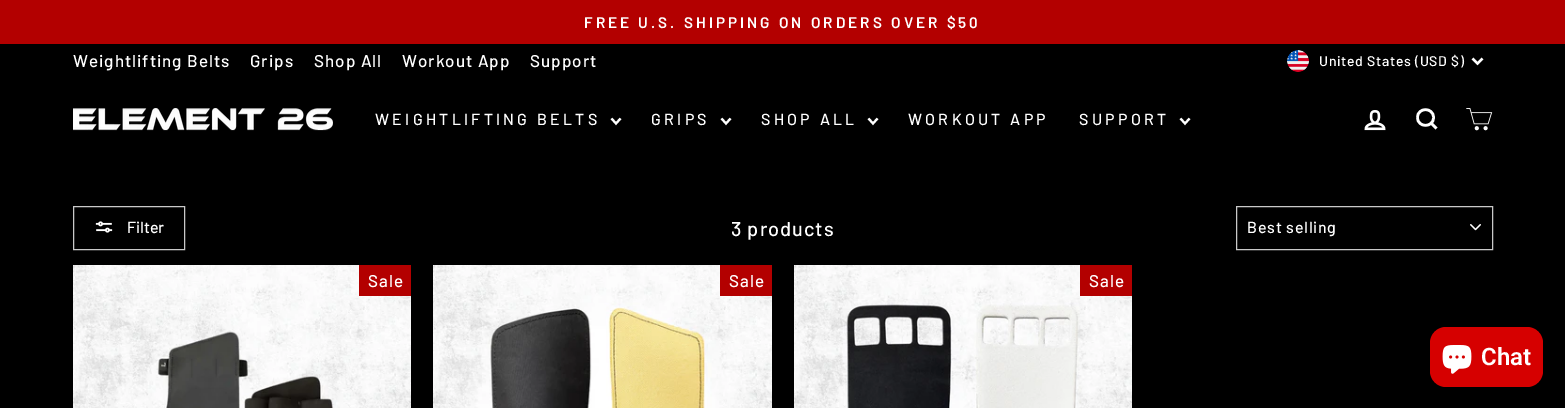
%!PS
<< /PageSize [1565 408] >> setpagedevice
/roundrect { 5 dict begin { /r /h /w /y /x } { exch def } forall
  x r add y moveto x w add y 2 copy h add r arct x w add y h add x 1 index r arct
  x y h add x y r arct x y 2 copy exch w add exch r arct closepath end } def
/picture { 5 dict begin { /h /w /y /x /name } { exch def } forall
  gsave x y translate w h scale
  w h 8 [w 0 0 h 0 0] name (r) file false 3 colorimage grestore end } def
0 408 translate 1 -1 scale
4 setmiterlimit
0 setgray
0 0 1565 408 rectfill
0.702 0 0 setrgbcolor
0 0 1565 44 rectfill
/Barlow-SemiBold [15.3 0 0 -15.3 0 0] selectfont
1 setgray
584 28 moveto 3.05 0 (FREE U.S. SHIPPING ON ORDERS OVER $50) ashow
/Barlow-Medium [17 0 0 -17 0 0] selectfont
73 67 moveto 1 0 (Weightlifting Belts) ashow
250 67 moveto 1 0 (Grips) ashow
314 67 moveto 1 0 (Shop All) ashow
402 67 moveto 1 0 (Workout App) ashow
530 67 moveto 1 0 (Support) ashow
(img1.rgb) 1287 50 22 22 picture
/Barlow-Medium [14 0 0 -14 0 0] selectfont
1319 66 moveto 0.7 0 (United States \(USD $\)) ashow
2.4 setlinewidth
newpath 1472.5 58.5 moveto 1477.5 63.5 lineto 1482.5 58.5 lineto stroke
(img2.rgb) 73 108 260 23 picture
/Barlow-Medium [16 0 0 -16 0 0] selectfont
375 125 moveto 3.25 0 (WEIGHTLIFTING BELTS) ashow
2.1 setlinewidth
newpath 611.5 118.5 moveto 616 123.5 lineto 620.5 118.5 lineto stroke
651 125 moveto 3.25 0 (GRIPS) ashow
newpath 721.5 118.5 moveto 726 123.5 lineto 730.5 118.5 lineto stroke
761 125 moveto 3.25 0 (SHOP ALL) ashow
newpath 868.5 118.5 moveto 873 123.5 lineto 877.5 118.5 lineto stroke
908 125 moveto 3.25 0 (WORKOUT APP) ashow
1079 125 moveto 3.25 0 (SUPPORT) ashow
newpath 1180.5 118.5 moveto 1185 123.5 lineto 1189.5 118.5 lineto stroke
(img3.rgb) 1364 110 22 21 picture
2.6 setlinewidth
newpath 1433.5 117.5 moveto 1433.5 128 1417.5 128 1417.5 117.5 curveto 1417.5 107 1433.5 107 1433.5 117.5 curveto closepath 1436.5 128.5 moveto 1431.5 123.5 lineto stroke
(img4.rgb) 1466 108 27 23 picture
0.788 setgray
1 setlinewidth
73.5 206.5 111 43 rectstroke
(img5.rgb) 95 221 18 12 picture
1 setgray
127 233 moveto (Filter) show
/Barlow-Medium [20 0 0 -20 0 0] selectfont
731 236 moveto 1 0 (3 products) ashow
(img6.rgb) 1470 224 11 7 picture
0.788 setgray
1236.5 206.5 256 43 rectstroke
/Barlow-Medium [16 0 0 -16 0 0] selectfont
1 setgray
1247 233 moveto 0.75 0 (Best selling) ashow
(img7.rgb) 73 265 338 143 picture
0.702 0 0 setrgbcolor
359 265 52 31 rectfill
/Barlow-Medium [17 0 0 -17 0 0] selectfont
1 setgray
368 287 moveto 1 0 (Sale) ashow
(img8.rgb) 433 265 339 143 picture
0.702 0 0 setrgbcolor
720 265 52 31 rectfill
1 setgray
729 287 moveto 1 0 (Sale) ashow
(img9.rgb) 794 265 338 143 picture
0.702 0 0 setrgbcolor
1080 265 52 31 rectfill
1 setgray
1089 287 moveto 1 0 (Sale) ashow
0.839 0 0 setrgbcolor
1430 327 113 60 16 roundrect fill
(img10.rgb) 1442 345 30 29 picture
/Roboto-SemiBold [24 0 0 -24 0 0] selectfont
1 setgray
1481 365 moveto (Chat) show
showpage
